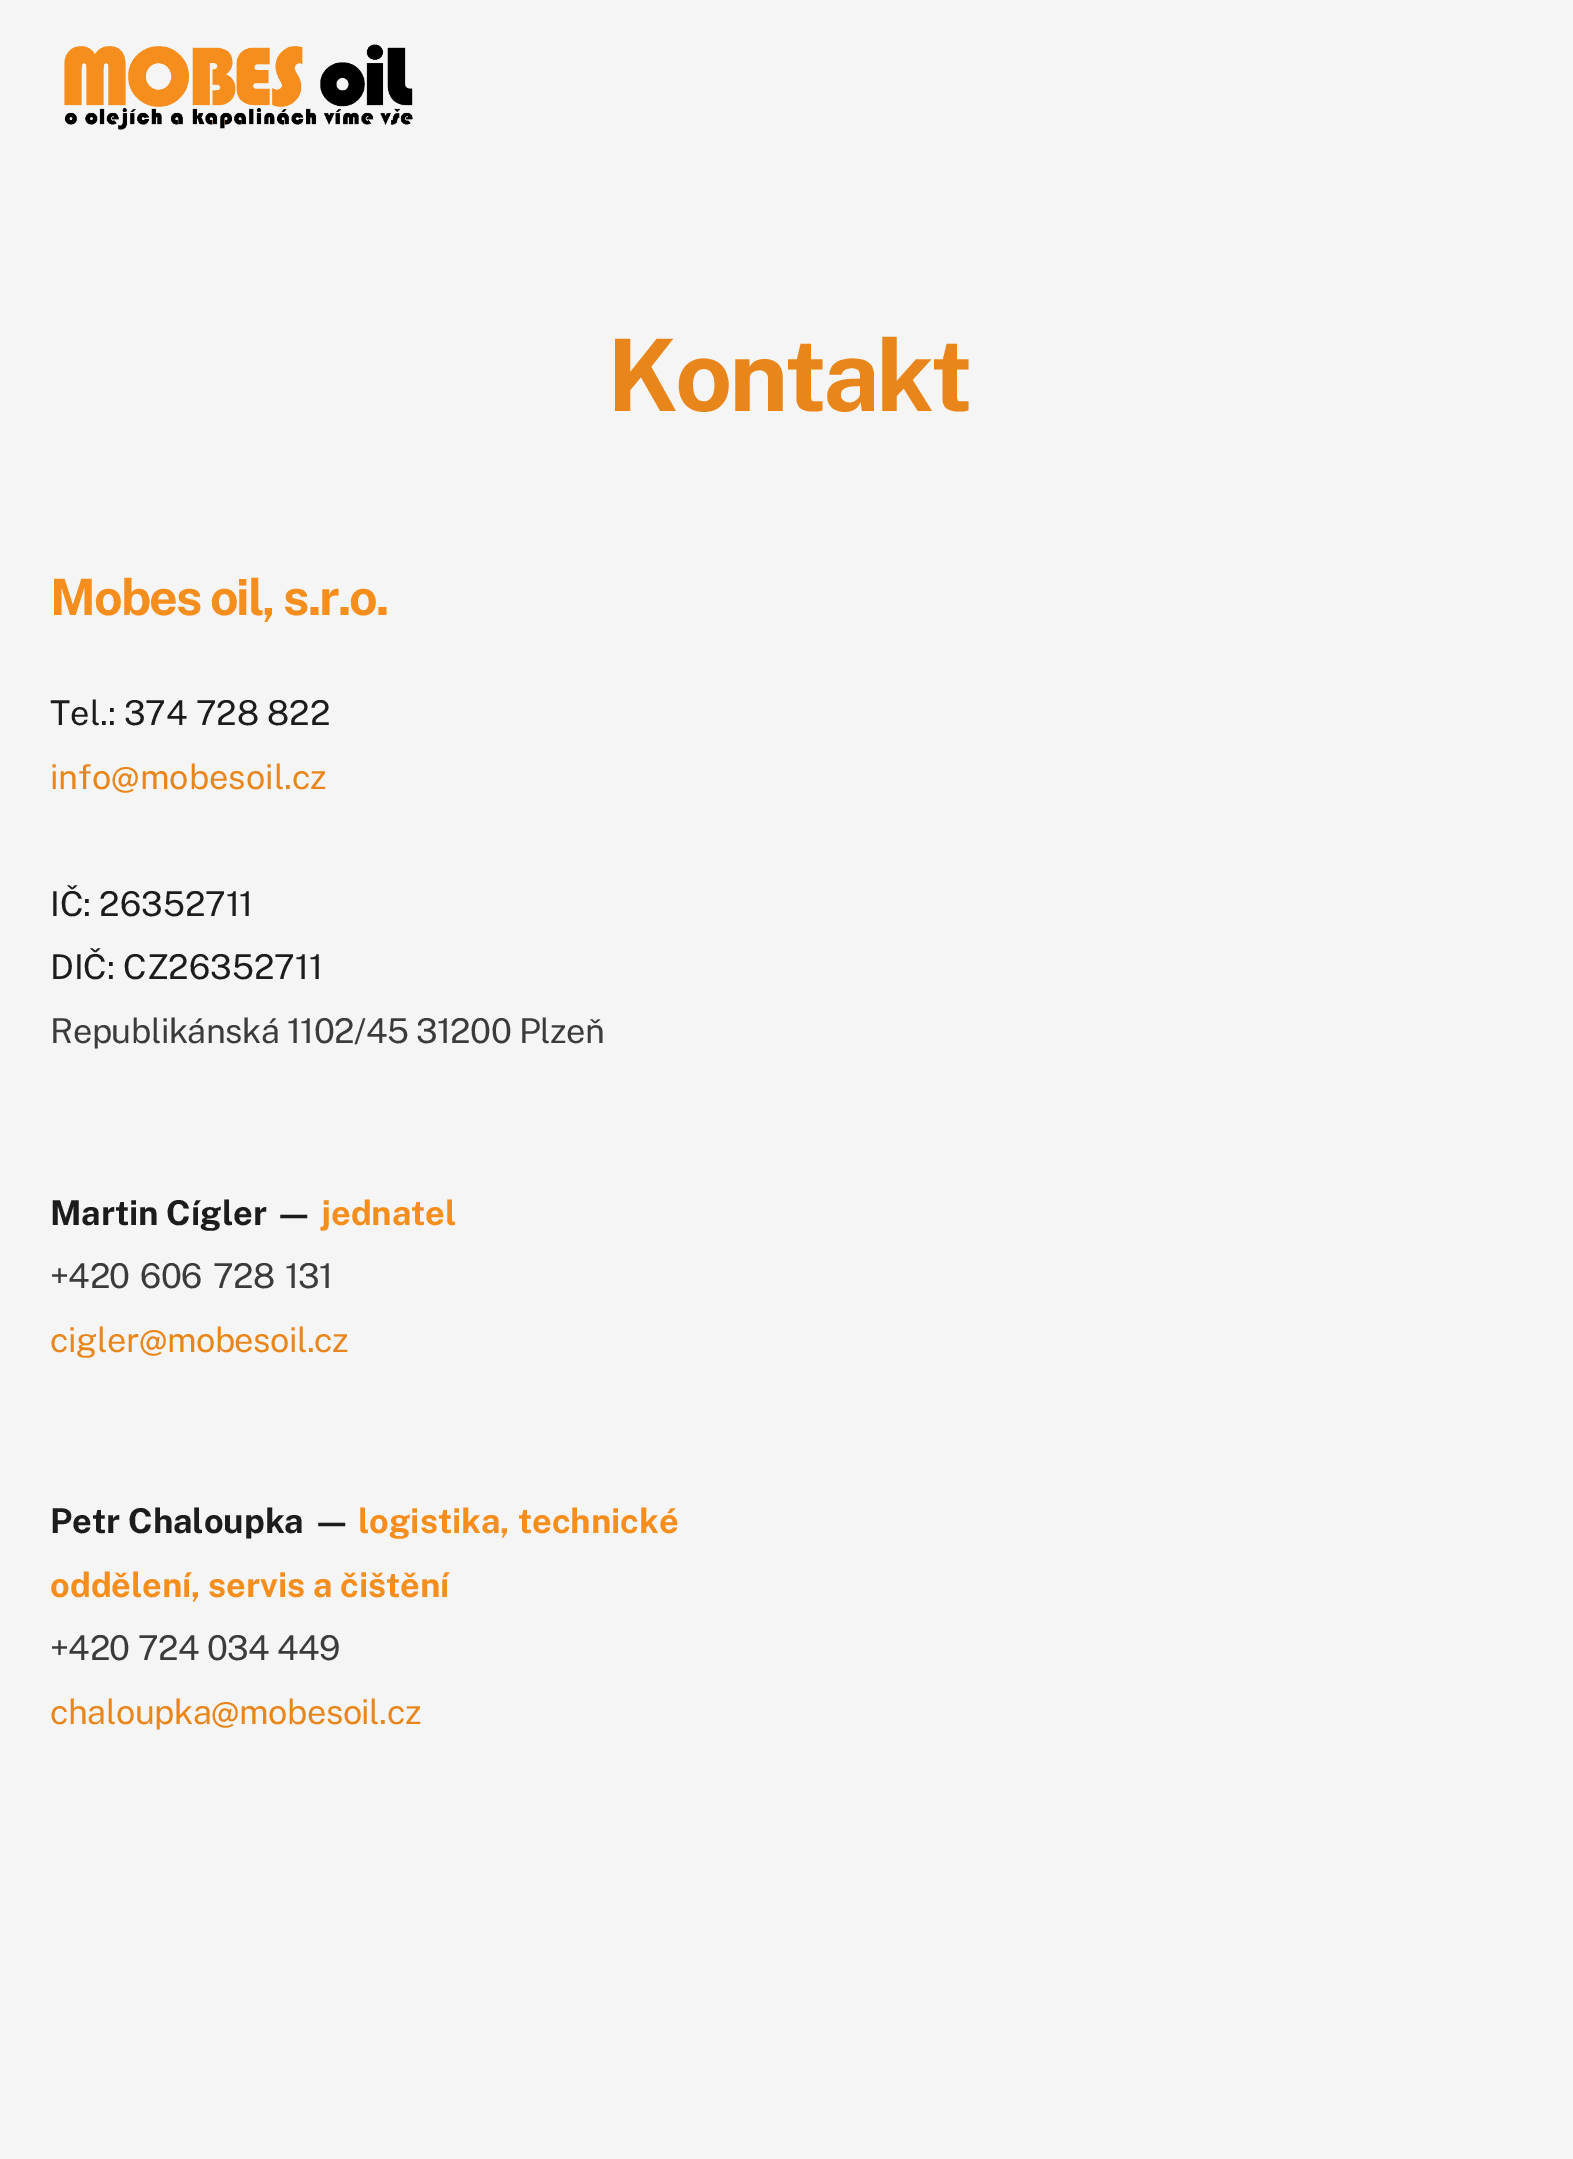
%!PS
<< /PageSize [1573 2159] >> setpagedevice
/picture { 5 dict begin { /h /w /y /x /name } { exch def } forall
  gsave x y translate w h scale
  w h 8 [w 0 0 h 0 0] name (r) file false 3 colorimage grestore end } def
0 2159 translate 1 -1 scale
4 setmiterlimit
0.961 setgray
0 0 1573 2159 rectfill
(img1.rgb) 64 44 349 86 picture
/PublicSans-Thin [100 0 0 -100 0 0] selectfont
0.91 0.525 0.106 setrgbcolor
607 411 moveto -3.5 0 (Kontakt) ashow
/PublicSans-Thin [50 0 0 -50 0 0] selectfont
0.961 0.557 0.114 setrgbcolor
50 615 moveto -2 0 (Mobes oil, s.r.o.) ashow
/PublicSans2-Thin [34.25 0 0 -34.25 0 0] selectfont
0.11 setgray
50 725 moveto (Tel.: 374 728 822) show
0.91 0.525 0.106 setrgbcolor
50 789 moveto (info@mobesoil.cz) show
0.11 setgray
50 916 moveto (IČ: 26352711) show
50 979 moveto (DIČ: CZ26352711) show
0.231 setgray
50 1043 moveto -0.5 0 (Republikánská 1102/45 31200 Plzeň) ashow
/PublicSans-Thin [34.25 0 0 -34.25 0 0] selectfont
0.11 setgray
50 1225 moveto (Martin Cígler —) show
0.961 0.557 0.114 setrgbcolor
321 1225 moveto (jednatel) show
/PublicSans2-Thin [34.25 0 0 -34.25 0 0] selectfont
0.231 setgray
50 1288 moveto 2.5 0 32 -0.5 0 (+420 606 728 131) awidthshow
0.91 0.525 0.106 setrgbcolor
50 1352 moveto -0.5 0 (cigler@mobesoil.cz) ashow
/PublicSans-Thin [34.25 0 0 -34.25 0 0] selectfont
0.11 setgray
50 1533 moveto (Petr Chaloupka —) show
0.961 0.557 0.114 setrgbcolor
358 1533 moveto (logistika, technické) show
50 1597 moveto (oddělení, servis a čištění) show
/PublicSans2-Thin [34.25 0 0 -34.25 0 0] selectfont
0.231 setgray
50 1660 moveto -0.5 0 (+420 724 034 449) ashow
0.91 0.525 0.106 setrgbcolor
50 1724 moveto -0.5 0 (chaloupka@mobesoil.cz) ashow
showpage
